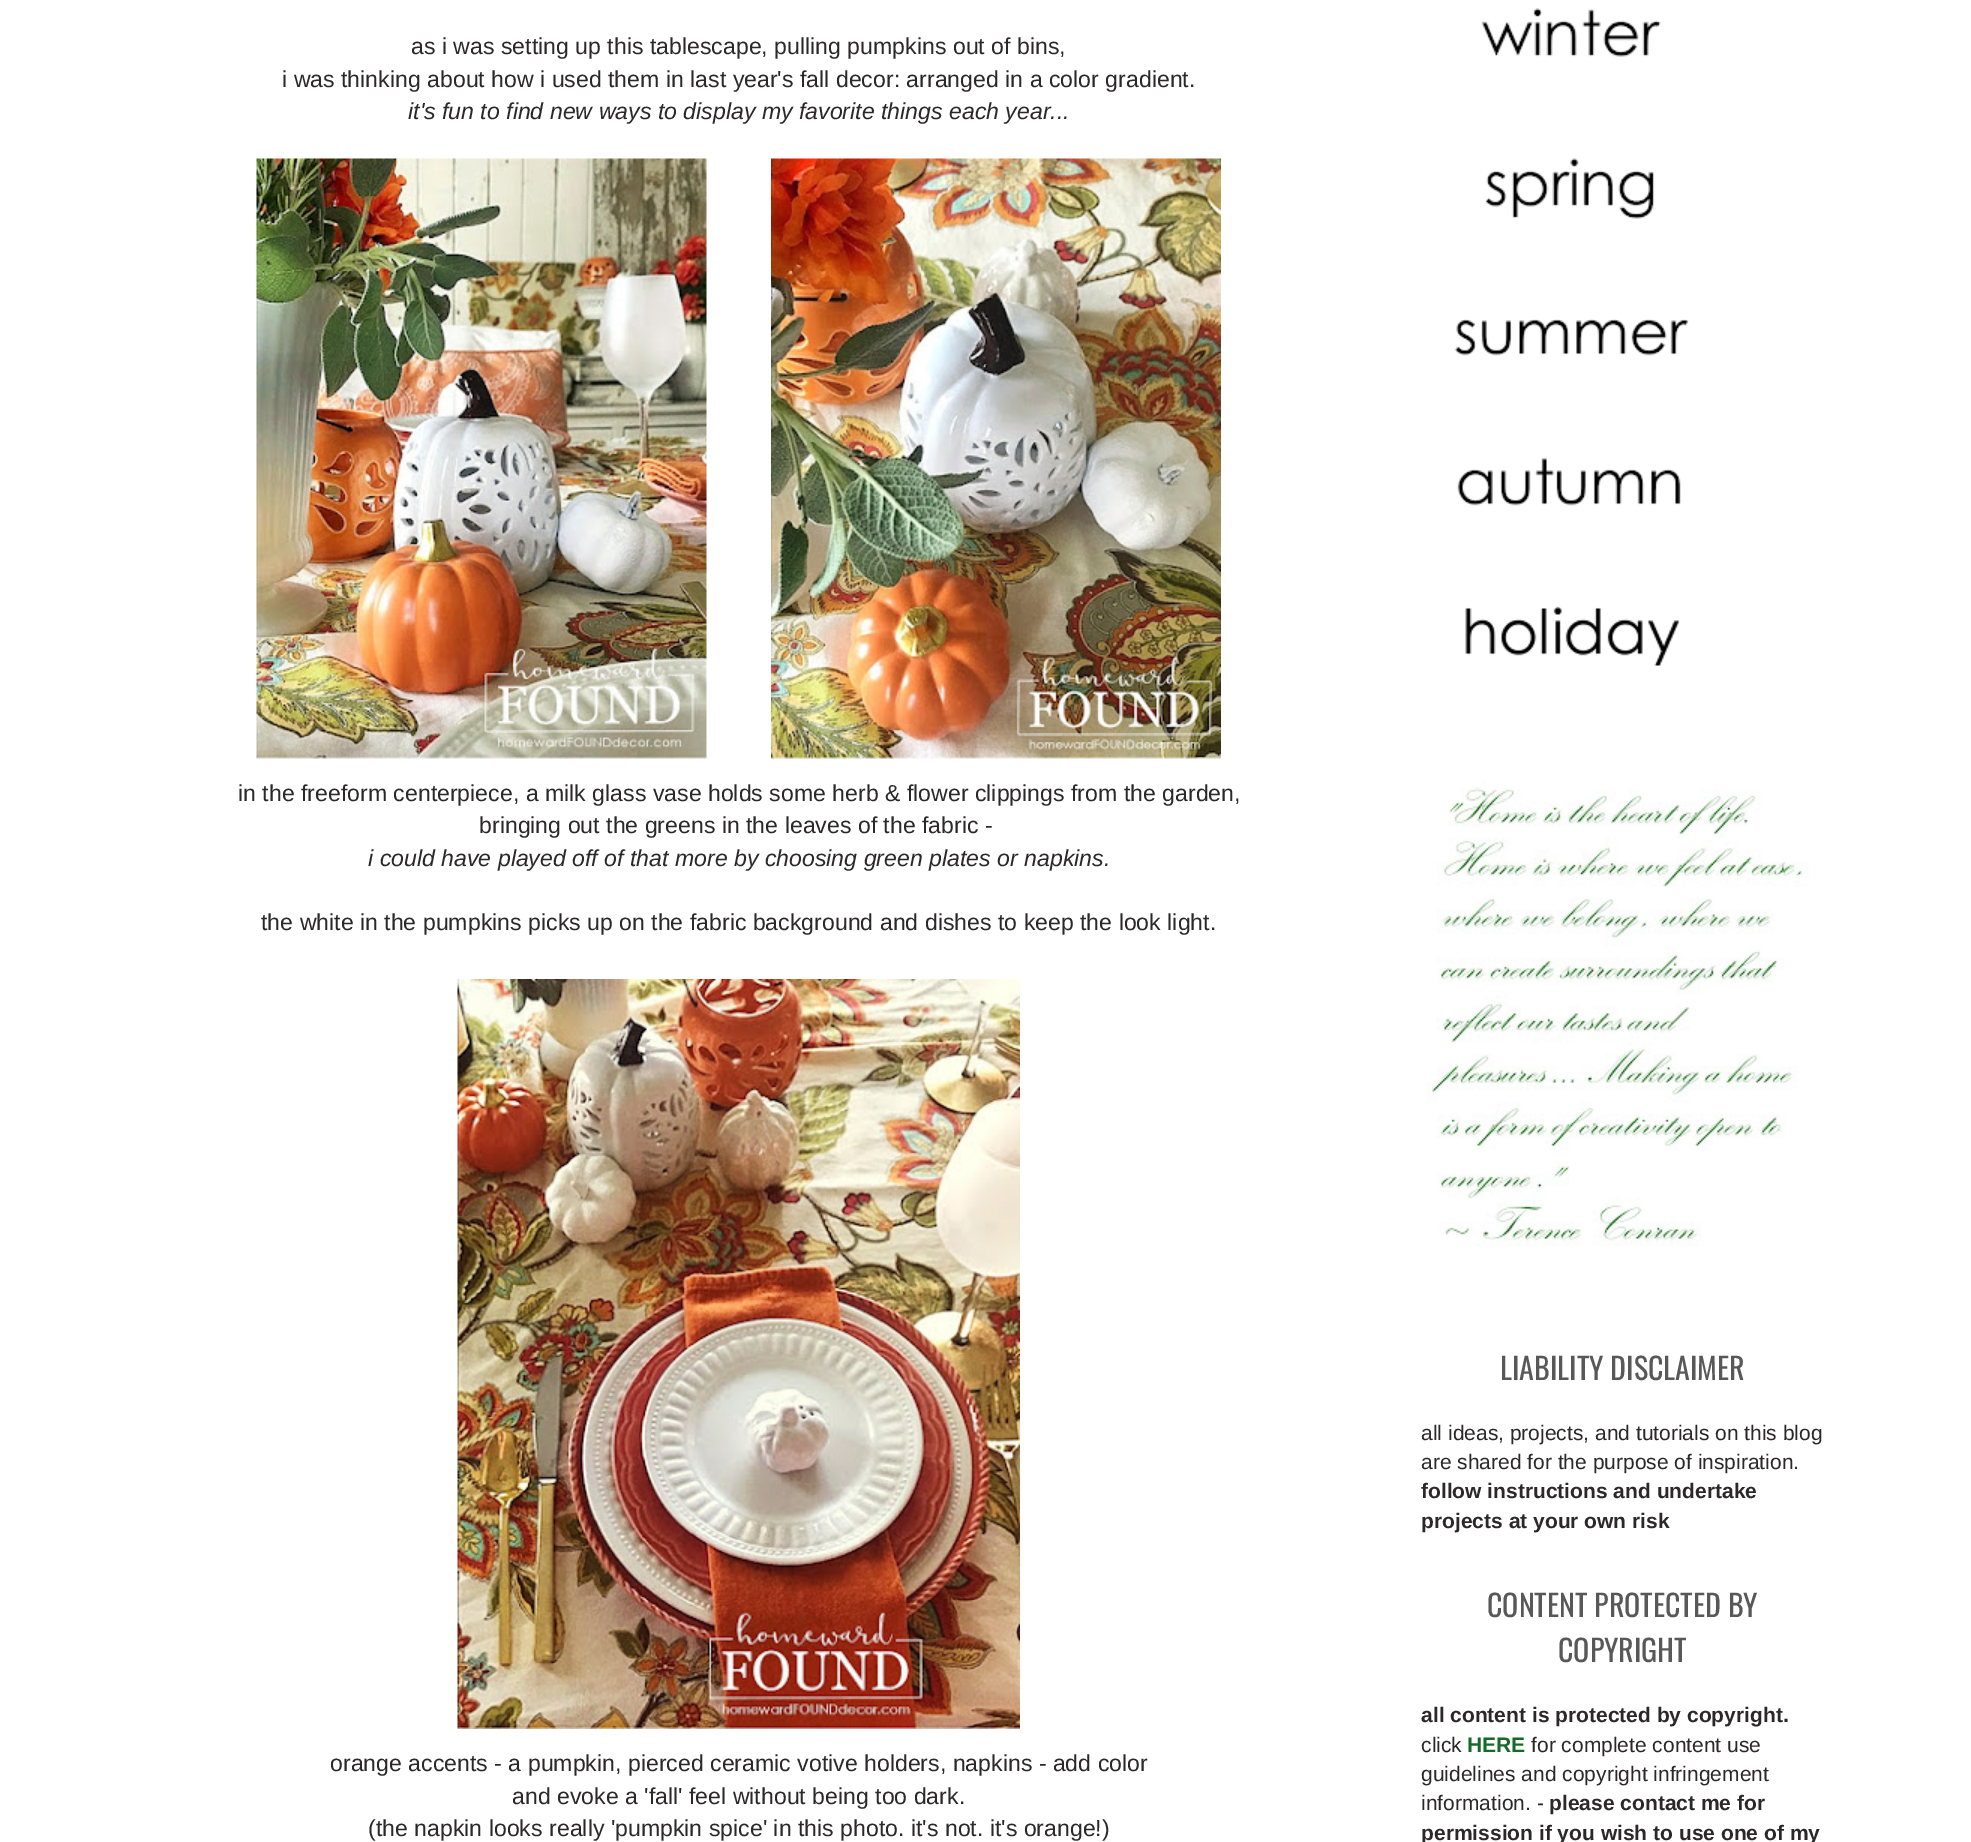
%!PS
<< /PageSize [1971 1842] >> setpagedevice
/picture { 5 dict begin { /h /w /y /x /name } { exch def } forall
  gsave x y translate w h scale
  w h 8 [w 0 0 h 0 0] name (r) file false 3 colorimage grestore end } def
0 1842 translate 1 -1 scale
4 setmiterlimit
1 setgray
0 0 1971 1842 rectfill
/LiberationSans-Regular [23.1 0 0 -23.1 0 0] selectfont
0.165 0.157 0.157 setrgbcolor
411 54 moveto (as i was setting up this tablescape, pulling pumpkins out of bins,) show
282 87 moveto (i was thinking about how i used them in last year's fall decor: arranged in a color gradient.) show
/LiberationSans-Italic [23.1 0 0 -23.1 0 0] selectfont
408 119 moveto (it's fun to find new ways to display my favorite things each year...) show
(img1.rgb) 256 158 451 601 picture
(img2.rgb) 771 158 450 601 picture
/LiberationSans-Regular [23.1 0 0 -23.1 0 0] selectfont
238 801 moveto (in the freeform centerpiece, a milk glass vase holds some herb & flower clippings from the garden,) show
479 833 moveto (bringing out the greens in the leaves of the fabric -) show
/LiberationSans-Italic [23.1 0 0 -23.1 0 0] selectfont
368 866 moveto (i could have played off of that more by choosing green plates or napkins.) show
/LiberationSans-Regular [23.1 0 0 -23.1 0 0] selectfont
261 930 moveto (the white in the pumpkins picks up on the fabric background and dishes to keep the look light.) show
(img3.rgb) 457 979 563 750 picture
330 1771 moveto (orange accents - a pumpkin, pierced ceramic votive holders, napkins - add color) show
512 1804 moveto (and evoke a 'fall' feel without being too dark.) show
368 1836 moveto (\(the napkin looks really 'pumpkin spice' in this photo. it's not. it's orange!\)) show
(img4.rgb) 1481 8 180 49 picture
(img5.rgb) 1485 158 170 61 picture
(img6.rgb) 1454 319 235 37 picture
(img7.rgb) 1457 458 224 48 picture
(img8.rgb) 1465 606 215 60 picture
(img9.rgb) 1425 783 384 463 picture
/Oswald-Regular [30 0 0 -30 0 0] selectfont
0.345 setgray
1500 1380 moveto (LIABILITY DISCLAIMER) show
/LiberationSans-Regular [21 0 0 -21 0 0] selectfont
0.165 0.157 0.157 setrgbcolor
1421 1440 moveto (all ideas, projects, and tutorials on this blog) show
1421 1469 moveto (are shared for the purpose of inspiration.) show
/LiberationSans-Bold [21 0 0 -21 0 0] selectfont
1421 1498 moveto (follow instructions and undertake) show
1421 1528 moveto (projects at your own risk) show
/Oswald-Regular [30 0 0 -30 0 0] selectfont
0.345 setgray
1487 1617 moveto (CONTENT PROTECTED BY) show
1558 1662 moveto (COPYRIGHT) show
/LiberationSans-Bold [21 0 0 -21 0 0] selectfont
0.165 0.157 0.157 setrgbcolor
1421 1722 moveto (all content is protected by copyright.) show
/LiberationSans-Regular [21 0 0 -21 0 0] selectfont
1421 1752 moveto (click) show
/LiberationSans-Bold [21 0 0 -21 0 0] selectfont
0.078 0.42 0.153 setrgbcolor
1467 1752 moveto (HERE) show
/LiberationSans-Regular [21 0 0 -21 0 0] selectfont
0.165 0.157 0.157 setrgbcolor
1531 1752 moveto (for complete content use) show
1421 1781 moveto (guidelines and copyright infringement) show
1421 1810 moveto (information. -) show
/LiberationSans-Bold [21 0 0 -21 0 0] selectfont
1549 1810 moveto (please contact me for) show
1421 1840 moveto (permission if you wish to use one of my) show
showpage
